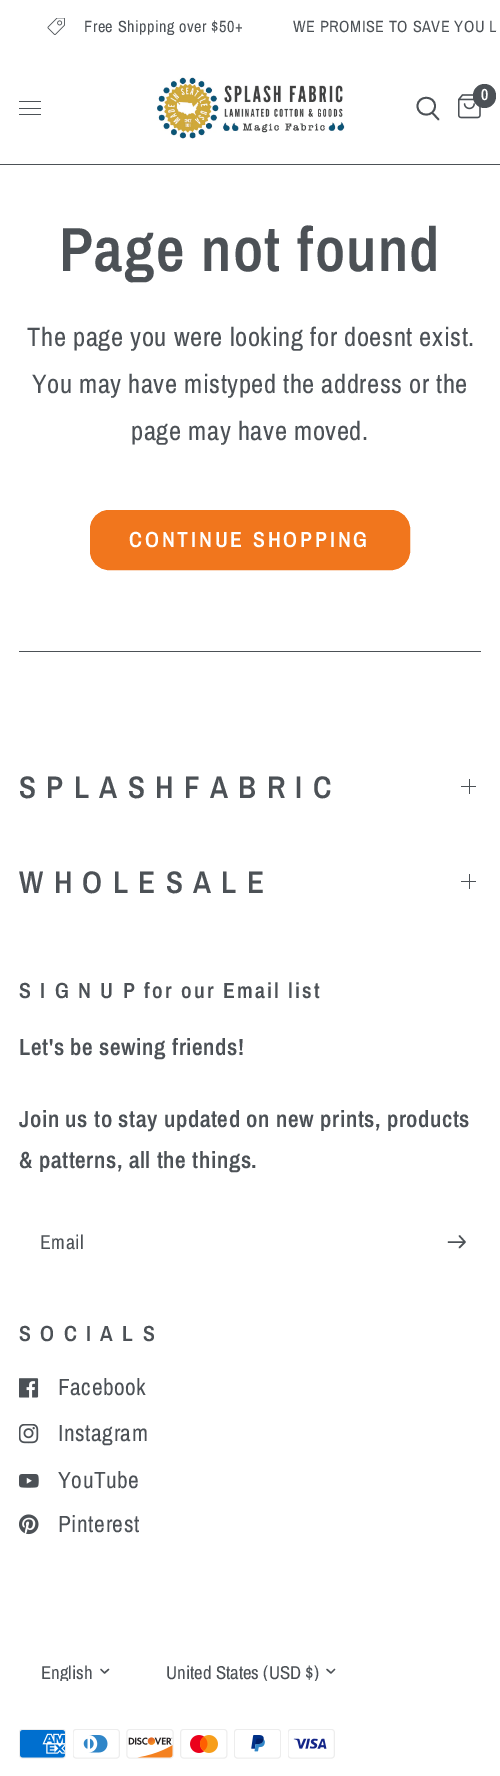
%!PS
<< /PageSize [500 1776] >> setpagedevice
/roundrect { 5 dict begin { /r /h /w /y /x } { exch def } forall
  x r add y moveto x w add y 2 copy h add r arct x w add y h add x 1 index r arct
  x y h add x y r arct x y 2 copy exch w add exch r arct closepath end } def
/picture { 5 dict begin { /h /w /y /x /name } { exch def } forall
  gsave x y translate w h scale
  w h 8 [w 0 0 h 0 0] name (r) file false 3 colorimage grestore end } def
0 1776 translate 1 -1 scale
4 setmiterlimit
1 setgray
0 0 500 1776 rectfill
(img1.rgb) 47 18 18 17 picture
/ArchivoNarrow-Regular [16.25 0 0 -16.25 0 0] selectfont
0.298 0.318 0.337 setrgbcolor
84 32 moveto 0.5 0 (Free Shipping over $50+) ashow
293 32 moveto 0.5 0 (WE PROMISE TO SAVE YOU L) ashow
0 164 500 1 rectfill
(img2.rgb) 157 77 188 62 picture
1.8 setlinewidth
1 setlinecap
1 setlinejoin
newpath 432.5 113 moveto 438.5 119.5 lineto 435 106 moveto 435 117.5 417.5 117.5 417.5 106 curveto 417.5 95 435 95 435 106 curveto closepath stroke
(img3.rgb) 458 94 23 25 picture
473 84 23 24 11.5 roundrect fill
/ArchivoNarrow-SemiBold [16 0 0 -16 0 0] selectfont
1 setgray
481 100 moveto 0.55 0 (0) ashow
0.298 0.318 0.337 setrgbcolor
19 101 22 1 0.5 roundrect fill
19 108 22 1 0.5 roundrect fill
19 114 22 1 0.5 roundrect fill
/ArchivoNarrow-SemiBold [62.5 0 0 -62.5 0 0] selectfont
59 271 moveto 1.25 0 (Page not found) ashow
/ArchivoNarrow-Regular [26.6 0 0 -26.6 0 0] selectfont
27 346 moveto 0.55 0 (The page you were looking for doesnt exist.) ashow
32 393 moveto -0.25 0 32 0.55 0 (You may have mistyped the address or the) awidthshow
131 440 moveto 0.55 0 (page may have moved.) ashow
0.945 0.463 0.114 setrgbcolor
90.5 510.5 319 59 18.5 roundrect gsave fill grestore
1 setlinewidth
0 setlinecap
0 setlinejoin
stroke
/ArchivoNarrow-SemiBold [21.9 0 0 -21.9 0 0] selectfont
1 setgray
129 547 moveto 2.8 0 (CONTINUE SHOPPING) ashow
0.298 0.318 0.337 setrgbcolor
19 651 462 1 rectfill
/ArchivoNarrow-SemiBold [31.25 0 0 -31.25 0 0] selectfont
19 798 moveto 1.6 0 (S P L A S H F A B R I C) ashow
469 779 1 15 rectfill
461 786 15 1 rectfill
19 893 moveto 1.6 0 (W H O L E S A L E) ashow
469 874 1 15 rectfill
461 881 15 1 rectfill
/ArchivoNarrow-SemiBold [21.9 0 0 -21.9 0 0] selectfont
19 998 moveto 2.2 0 (S I G N U P for our Email list) ashow
/ArchivoNarrow-SemiBold [23.4 0 0 -23.4 0 0] selectfont
19 1055 moveto 0.55 0 (Let's be sewing friends!) ashow
19 1127 moveto 0.55 0 (Join us to stay updated on new prints, products) ashow
19 1168 moveto 0.55 0 (& patterns, all the things.) ashow
/ArchivoNarrow-Regular [20 0 0 -20 0 0] selectfont
40 1249 moveto 0.5 0 (Email) ashow
1.5 setlinewidth
1 setlinecap
1 setlinejoin
newpath 448.5 1242 moveto 463.5 1242 lineto 459.5 1236 moveto 465 1242 lineto 459.5 1247.5 lineto stroke
/ArchivoNarrow-SemiBold [21.9 0 0 -21.9 0 0] selectfont
19 1341 moveto 2.2 0 (S O C I A L S) ashow
(img4.rgb) 19 1378 20 20 picture
/ArchivoNarrow-Regular [23.4 0 0 -23.4 0 0] selectfont
58 1395 moveto 0.55 0 (Facebook) ashow
(img5.rgb) 19 1424 20 20 picture
58 1441 moveto 0.55 0 (Instagram) ashow
(img6.rgb) 19 1474 20 14 picture
58 1488 moveto 0.55 0 (YouTube) ashow
(img7.rgb) 19 1514 20 21 picture
58 1532 moveto 0.55 0 (Pinterest) ashow
gsave
41 1663 53 18 rectclip
/ArchivoNarrow-Regular [18.75 0 0 -18.75 0 0] selectfont
41 1679 moveto (English) show
grestore
1.4 setlinewidth
newpath 108.5 1669.5 moveto 104.5 1673 lineto 101 1669.5 lineto stroke
gsave
166 1663 154 18 rectclip
/ArchivoNarrow-Regular [18.75 0 0 -18.75 0 0] selectfont
166 1679 moveto (United States \(USD $\)) show
grestore
newpath 334.5 1669.5 moveto 331 1673 lineto 327 1669.5 lineto stroke
(img8.rgb) 19 1729 47 30 picture
(img9.rgb) 73 1729 47 30 picture
(img10.rgb) 126 1729 48 30 picture
(img11.rgb) 180 1729 48 30 picture
(img12.rgb) 234 1729 47 30 picture
(img13.rgb) 288 1729 47 30 picture
showpage
